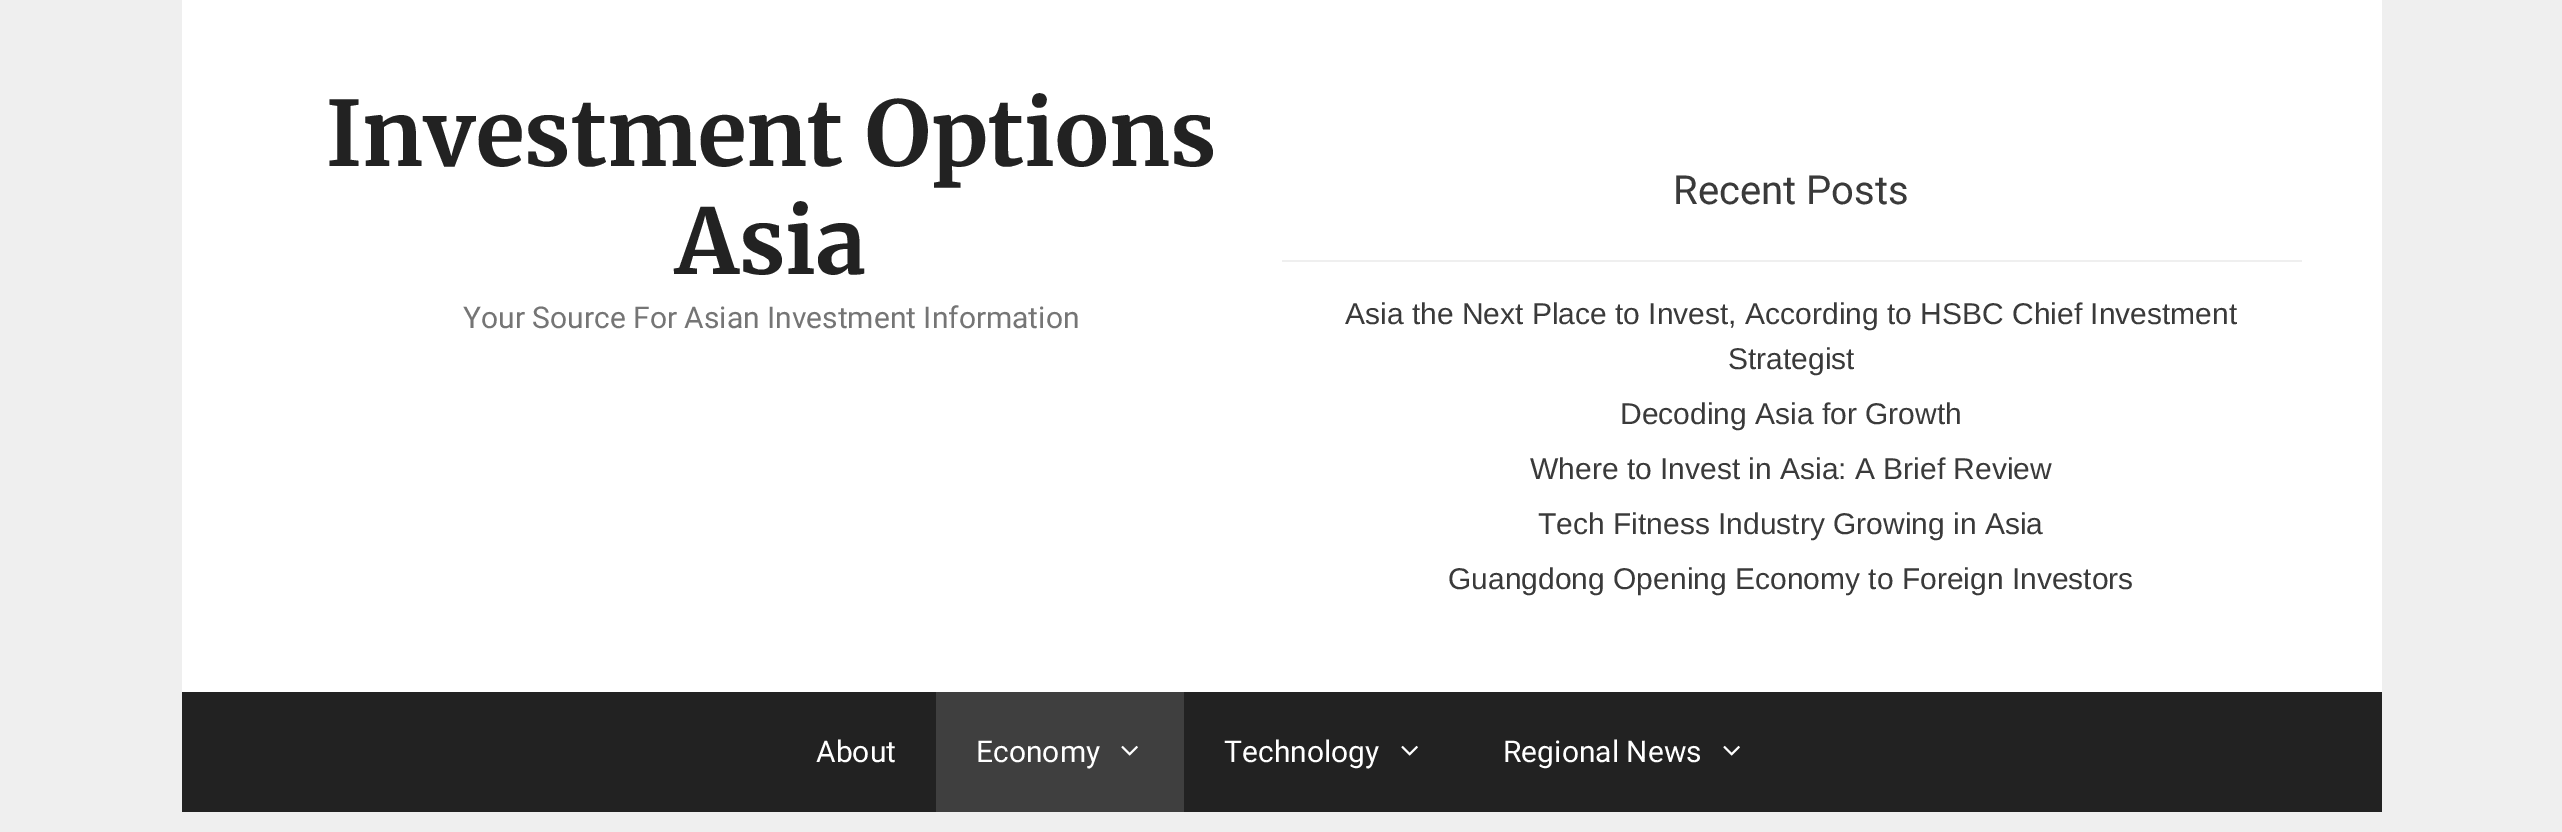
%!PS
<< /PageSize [2562 832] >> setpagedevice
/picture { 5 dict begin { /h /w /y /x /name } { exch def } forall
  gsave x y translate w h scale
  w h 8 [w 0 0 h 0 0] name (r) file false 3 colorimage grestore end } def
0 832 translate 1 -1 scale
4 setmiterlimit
0.937 setgray
0 0 2562 832 rectfill
1 setgray
182 0 2200 692 rectfill
/Merriweather-Bold [90 0 0 -90 0 0] selectfont
0.133 setgray
326 166 moveto (Investment Options) show
675 274 moveto (Asia) show
/Roboto-Regular [30 0 0 -30 0 0] selectfont
0.459 setgray
463 328 moveto (Your Source For Asian Investment Information) show
0.937 setgray
1282 260 1020 2 rectfill
/Roboto-Regular [40 0 0 -40 0 0] selectfont
0.227 setgray
1673 204 moveto (Recent Posts) show
/LiberationSans-Regular [30 0 0 -30 0 0] selectfont
1345 324 moveto (Asia the Next Place to Invest, According to HSBC Chief Investment) show
1728 369 moveto (Strategist) show
1620 424 moveto (Decoding Asia for Growth) show
1530 479 moveto (Where to Invest in Asia: A Brief Review) show
1538 534 moveto (Tech Fitness Industry Growing in Asia) show
1448 589 moveto (Guangdong Opening Economy to Foreign Investors) show
0.133 setgray
182 692 2200 120 rectfill
/Roboto-Regular [30 0 0 -30 0 0] selectfont
1 setgray
816 762 moveto (About) show
0.247 setgray
936 692 248 120 rectfill
1 setgray
976 762 moveto (Economy) show
(img1.rgb) 1121 745 17 11 picture
1224 762 moveto (Technology) show
(img2.rgb) 1401 745 17 11 picture
1503 762 moveto (Regional News) show
(img2.rgb) 1723 745 17 11 picture
showpage
